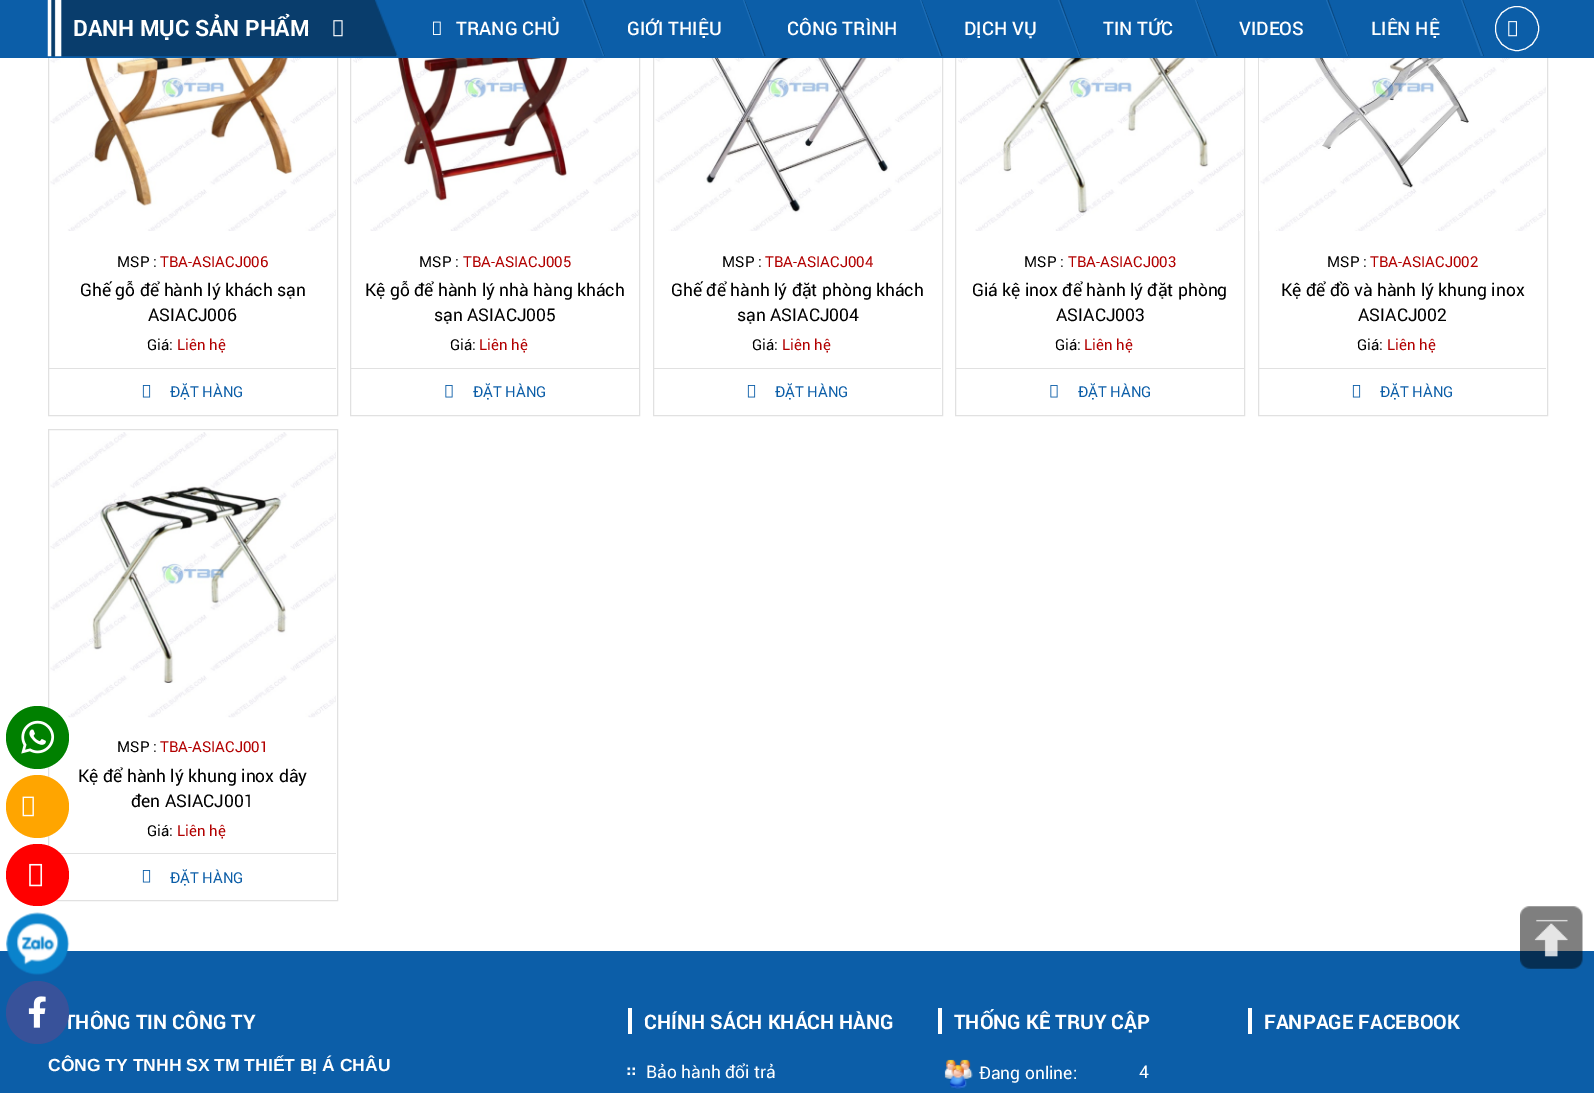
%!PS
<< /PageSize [1594 1093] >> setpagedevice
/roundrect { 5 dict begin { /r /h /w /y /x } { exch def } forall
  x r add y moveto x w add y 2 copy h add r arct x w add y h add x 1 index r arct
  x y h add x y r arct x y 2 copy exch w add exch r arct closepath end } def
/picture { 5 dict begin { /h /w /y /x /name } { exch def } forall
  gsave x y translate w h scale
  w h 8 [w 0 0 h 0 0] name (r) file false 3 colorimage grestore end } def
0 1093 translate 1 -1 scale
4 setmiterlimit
1 setgray
0 0 1594 1093 rectfill
0.882 setgray
48.5 -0.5 289 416 rectstroke
350.5 -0.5 289 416 rectstroke
653.5 -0.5 289 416 rectstroke
955.5 -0.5 289 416 rectstroke
1258.5 -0.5 289 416 rectstroke
0.047 0.369 0.659 setrgbcolor
0 0 1594 58 rectfill
0.039 0.294 0.525 setrgbcolor
newpath 604 56 moveto 605 56 lineto 585 0 lineto 583 0 lineto closepath fill
0.047 0.369 0.659 setrgbcolor
newpath 389 0 moveto 583 0 lineto 604 56 lineto 409 56 lineto closepath fill
(img1.rgb) 47 0 351 57 picture
/Roboto-Bold [22.5 0 0 -22.5 0 0] selectfont
1 setgray
73 36 moveto (DANH MỤC SẢN PHẨM) show
(img2.rgb) 333 20 10 17 picture
0.114 0.427 0.71 setrgbcolor
newpath 582 0 moveto 583 0 lineto 604 56 lineto 603 56 lineto closepath fill
(img3.rgb) 433 21 8 14 picture
/Roboto-Medium [18.75 0 0 -18.75 0 0] selectfont
1 setgray
456 35 moveto (TRANG CHỦ) show
0.039 0.294 0.525 setrgbcolor
newpath 764 56 moveto 766 56 lineto 745 0 lineto 744 0 lineto closepath fill
0.047 0.369 0.659 setrgbcolor
newpath 585 0 moveto 744 0 lineto 764 56 lineto 605 56 lineto closepath fill
0.114 0.427 0.71 setrgbcolor
newpath 743 0 moveto 744 0 lineto 764 56 lineto 763 56 lineto closepath fill
1 setgray
627 35 moveto (GIỚI THIỆU) show
0.039 0.294 0.525 setrgbcolor
newpath 941 56 moveto 943 56 lineto 922 0 lineto 921 0 lineto closepath fill
0.047 0.369 0.659 setrgbcolor
newpath 745 0 moveto 921 0 lineto 941 56 lineto 766 56 lineto closepath fill
0.114 0.427 0.71 setrgbcolor
newpath 920 0 moveto 921 0 lineto 941 56 lineto 940 56 lineto closepath fill
1 setgray
787 35 moveto (CÔNG TRÌNH) show
0.039 0.294 0.525 setrgbcolor
newpath 1080 56 moveto 1081 56 lineto 1061 0 lineto 1059 0 lineto closepath fill
0.047 0.369 0.659 setrgbcolor
newpath 922 0 moveto 1059 0 lineto 1080 56 lineto 943 56 lineto closepath fill
0.114 0.427 0.71 setrgbcolor
newpath 1058 0 moveto 1059 0 lineto 1080 56 lineto 1079 56 lineto closepath fill
1 setgray
964 35 moveto (DỊCH VỤ) show
0.039 0.294 0.525 setrgbcolor
newpath 1216 56 moveto 1218 56 lineto 1197 0 lineto 1196 0 lineto closepath fill
0.047 0.369 0.659 setrgbcolor
newpath 1061 0 moveto 1196 0 lineto 1216 56 lineto 1081 56 lineto closepath fill
0.114 0.427 0.71 setrgbcolor
newpath 1195 0 moveto 1196 0 lineto 1216 56 lineto 1215 56 lineto closepath fill
1 setgray
1103 35 moveto (TIN TỨC) show
0.039 0.294 0.525 setrgbcolor
newpath 1348 56 moveto 1349 56 lineto 1329 0 lineto 1327 0 lineto closepath fill
0.047 0.369 0.659 setrgbcolor
newpath 1197 0 moveto 1327 0 lineto 1348 56 lineto 1218 56 lineto closepath fill
0.114 0.427 0.71 setrgbcolor
newpath 1326 0 moveto 1327 0 lineto 1348 56 lineto 1347 56 lineto closepath fill
1 setgray
1239 35 moveto (VIDEOS) show
0.039 0.294 0.525 setrgbcolor
newpath 1483 56 moveto 1484 56 lineto 1463 0 lineto 1462 0 lineto closepath fill
0.047 0.369 0.659 setrgbcolor
newpath 1329 0 moveto 1462 0 lineto 1483 56 lineto 1349 56 lineto closepath fill
0.114 0.427 0.71 setrgbcolor
newpath 1461 0 moveto 1462 0 lineto 1483 56 lineto 1481 56 lineto closepath fill
1 setgray
1371 35 moveto (LIÊN HỆ) show
1495.5 6.5 43 44 21.5 roundrect stroke
(img4.rgb) 1508 21 9 16 picture
0.882 setgray
48.5 429.5 289 471 rectstroke
(img17.rgb) 50 432 286 286 picture
0 0.502 0 setrgbcolor
newpath 37.5 737.5 31.5 0 360 arc closepath fill
(img5.rgb) 21 720 34 34 picture
1 0.647 0 setrgbcolor
newpath 37.5 806.5 31.5 0 360 arc closepath fill
(img6.rgb) 22 796 12 21 picture
0.882 setgray
59 853 277 1 rectfill
1 0 0 setrgbcolor
6 844 63 62 31 roundrect fill
(img7.rgb) 29 863 14 24 picture
0.047 0.369 0.659 setrgbcolor
0 951 1594 142 rectfill
(img8.rgb) 6 912 64 63 picture
/Roboto-Bold [20 0 0 -20 0 0] selectfont
1 setgray
64 1029 moveto (THÔNG TIN CÔNG TY) show
0.22 0.322 0.604 setrgbcolor
newpath 37.5 1012.5 31.5 0 360 arc closepath fill
(img9.rgb) 28 996 18 32 picture
(img10.rgb) 50 58 286 173 picture
/Roboto-Regular [15 0 0 -15 0 0] selectfont
0 setgray
117 267 moveto (MSP :) show
0.698 0 0 setrgbcolor
160 267 moveto (TBA-ASIACJ006) show
/Roboto-Regular [17.5 0 0 -17.5 0 0] selectfont
0 setgray
80 296 moveto (Ghế gỗ để hành lý khách sạn) show
148 321 moveto (ASIACJ006) show
/Roboto-Regular [15 0 0 -15 0 0] selectfont
147 350 moveto (Giá:) show
0.698 0 0 setrgbcolor
177 350 moveto (Liên hệ) show
0.882 setgray
49 368 287 1 rectfill
(img11.rgb) 142 385 9 13 picture
0.047 0.369 0.659 setrgbcolor
170 397 moveto (ĐẶT HÀNG) show
(img12.rgb) 353 58 286 173 picture
0 setgray
419 267 moveto (MSP :) show
0.698 0 0 setrgbcolor
463 267 moveto (TBA-ASIACJ005) show
/Roboto-Regular [17.5 0 0 -17.5 0 0] selectfont
0 setgray
365 296 moveto (Kệ gỗ để hành lý nhà hàng khách) show
434 321 moveto (sạn ASIACJ005) show
/Roboto-Regular [15 0 0 -15 0 0] selectfont
450 350 moveto (Giá:) show
0.698 0 0 setrgbcolor
479 350 moveto (Liên hệ) show
0.882 setgray
351 368 288 1 rectfill
(img13.rgb) 445 385 8 13 picture
0.047 0.369 0.659 setrgbcolor
473 397 moveto (ĐẶT HÀNG) show
(img14.rgb) 655 58 286 173 picture
0 setgray
722 267 moveto (MSP :) show
0.698 0 0 setrgbcolor
765 267 moveto (TBA-ASIACJ004) show
/Roboto-Regular [17.5 0 0 -17.5 0 0] selectfont
0 setgray
671 296 moveto (Ghế để hành lý đặt phòng khách) show
737 321 moveto (sạn ASIACJ004) show
/Roboto-Regular [15 0 0 -15 0 0] selectfont
752 350 moveto (Giá:) show
0.698 0 0 setrgbcolor
782 350 moveto (Liên hệ) show
0.882 setgray
654 368 287 1 rectfill
(img11.rgb) 747 385 9 13 picture
0.047 0.369 0.659 setrgbcolor
775 397 moveto (ĐẶT HÀNG) show
(img15.rgb) 958 58 286 173 picture
0 setgray
1024 267 moveto (MSP :) show
0.698 0 0 setrgbcolor
1068 267 moveto (TBA-ASIACJ003) show
/Roboto-Regular [17.5 0 0 -17.5 0 0] selectfont
0 setgray
972 296 moveto (Giá kệ inox để hành lý đặt phòng) show
1056 321 moveto (ASIACJ003) show
/Roboto-Regular [15 0 0 -15 0 0] selectfont
1055 350 moveto (Giá:) show
0.698 0 0 setrgbcolor
1084 350 moveto (Liên hệ) show
0.882 setgray
956 368 288 1 rectfill
(img13.rgb) 1050 385 8 13 picture
0.047 0.369 0.659 setrgbcolor
1078 397 moveto (ĐẶT HÀNG) show
(img16.rgb) 1259 58 287 173 picture
0 setgray
1327 267 moveto (MSP :) show
0.698 0 0 setrgbcolor
1370 267 moveto (TBA-ASIACJ002) show
/Roboto-Regular [17.5 0 0 -17.5 0 0] selectfont
0 setgray
1281 296 moveto (Kệ để đồ và hành lý khung inox) show
1358 321 moveto (ASIACJ002) show
/Roboto-Regular [15 0 0 -15 0 0] selectfont
1357 350 moveto (Giá:) show
0.698 0 0 setrgbcolor
1387 350 moveto (Liên hệ) show
0.882 setgray
1259 368 287 1 rectfill
(img11.rgb) 1352 385 9 13 picture
0.047 0.369 0.659 setrgbcolor
1380 397 moveto (ĐẶT HÀNG) show
0 setgray
117 752 moveto (MSP :) show
0.698 0 0 setrgbcolor
160 752 moveto (TBA-ASIACJ001) show
/Roboto-Regular [17.5 0 0 -17.5 0 0] selectfont
0 setgray
78 782 moveto (Kệ để hành lý khung inox dây) show
131 807 moveto (đen ASIACJ001) show
/Roboto-Regular [15 0 0 -15 0 0] selectfont
147 836 moveto (Giá:) show
0.698 0 0 setrgbcolor
177 836 moveto (Liên hệ) show
(img11.rgb) 142 870 9 13 picture
0.047 0.369 0.659 setrgbcolor
170 883 moveto (ĐẶT HÀNG) show
(img18.rgb) 1520 906 63 63 picture
/LiberationSans-Bold [17.5 0 0 -17.5 0 0] selectfont
1 setgray
48 1071 moveto (CÔNG TY TNHH SX TM THIẾT BỊ Á CHÂU) show
628 1008 4 26 rectfill
/Roboto-Bold [20 0 0 -20 0 0] selectfont
644 1029 moveto (CHÍNH SÁCH KHÁCH HÀNG) show
(img19.rgb) 627 1067 8 8 picture
/Roboto-Regular [17.5 0 0 -17.5 0 0] selectfont
646 1078 moveto (Bảo hành đổi trả) show
938 1008 4 26 rectfill
/Roboto-Bold [20 0 0 -20 0 0] selectfont
954 1029 moveto (THỐNG KÊ TRUY CẬP) show
(img20.rgb) 944 1059 29 30 picture
/Roboto-Regular [17.5 0 0 -17.5 0 0] selectfont
979 1079 moveto (Đang online:) show
1139 1078 moveto (4) show
1248 1008 4 26 rectfill
/Roboto-Bold [20 0 0 -20 0 0] selectfont
1264 1029 moveto (FANPAGE FACEBOOK) show
showpage
